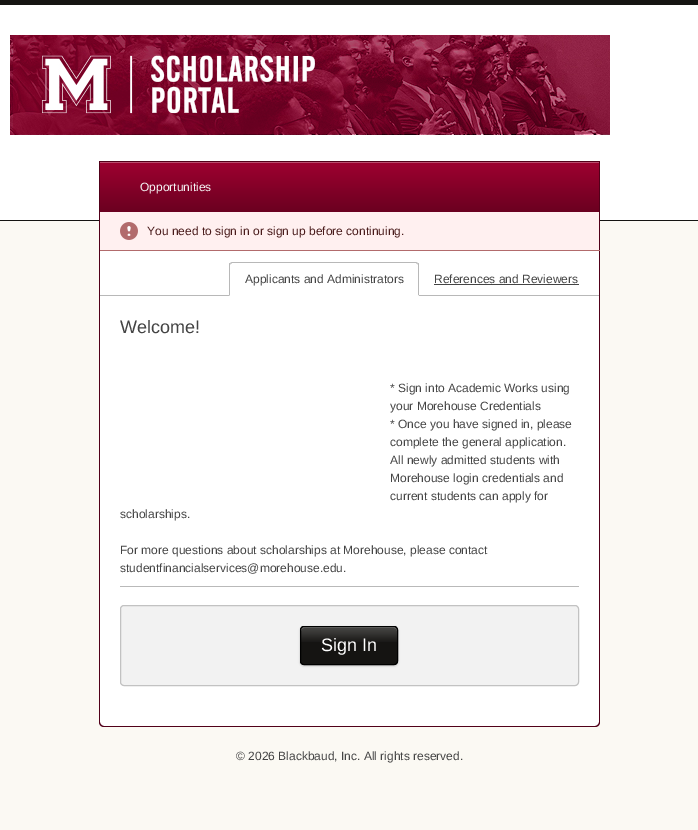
%!PS
<< /PageSize [698 830] /PageUsesTransparency true >> setpagedevice
/alpha { dup .setfillconstantalpha .setstrokeconstantalpha } def
/roundrect { 5 dict begin { /r /h /w /y /x } { exch def } forall
  x r add y moveto x w add y 2 copy h add r arct x w add y h add x 1 index r arct
  x y h add x y r arct x y 2 copy exch w add exch r arct closepath end } def
/shadow { 12 dict begin { /a /b /q /h /w /y /x } { exch def } forall gsave /was 0 def
  9 -2 -9 { dup b mul 4 div /e exch def 1 sub .425 mul 2.718 exch exp 1 add a .99 .min exch div /now exch def
    1 1 now sub 1 was sub div sub alpha /was now def
    w h .min e 2 mul add 0 gt { x e sub y e sub w e 2 mul add h e 2 mul add
      q e add b .6 mul add w h .min 2 div e add .min 0 .max roundrect fill } if } for grestore end } def
/picture { 5 dict begin { /h /w /y /x /name } { exch def } forall
  gsave x y translate w h scale
  w h 8 [w 0 0 h 0 0] name (r) file false 3 colorimage grestore end } def
0 .pushpdf14devicefilter
0 830 translate 1 -1 scale
4 setmiterlimit
0.984 0.976 0.953 setrgbcolor
0 0 698 830 rectfill
1 setgray
0 5 698 215 rectfill
0.082 0.078 0.071 setrgbcolor
0 0 698 5 rectfill
0 220 698 1 rectfill
(img1.rgb) 10 35 600 100 picture
gsave newpath 100 163 moveto 599 163 lineto 599 212 lineto 100 212 lineto closepath clip newpath
<< /ShadingType 2 /ColorSpace /DeviceRGB /Coords [350 162 350 212] /Extend [true true] /Function << /FunctionType 2 /Domain [0 1] /C0 [0.62 0 0.188] /C1 [0.42 0 0.125] /N 1 >> >> shfill grestore
0.729 0.302 0.431 setrgbcolor
100 162 499 1 rectfill
0.318 0 0.098 setrgbcolor
99 161 501 1 rectfill
599 161 1 90 rectfill
99 161 1 51 rectfill
/LiberationSans-Regular [12 0 0 -12 0 0] selectfont
0.961 setgray
140 191 moveto (Opportunities) show
1 0.941 0.941 setrgbcolor
100 212 499 38 rectfill
0.698 0.42 0.424 setrgbcolor
99 250 501 1 rectfill
0.318 0 0.098 setrgbcolor
99 212 1 39 rectfill
(img2.rgb) 120 222 18 18 picture
0.286 0.106 0.106 setrgbcolor
147 235 moveto (You need to sign in or sign up before continuing.) show
1 setgray
newpath 99 251 moveto 600 251 lineto 600 722 lineto 600 725 598 727 595 727 curveto 104 727 lineto 101 727 99 725 99 722 curveto closepath fill
0.318 0 0.098 setrgbcolor
newpath 99 251 moveto 600 251 lineto 600 722 lineto 600 725 598 727 595 727 curveto 104 727 lineto 101 727 99 725 99 722 curveto closepath 100 251 moveto 599 251 lineto 599 722 lineto 599 724 597 726 595 726 curveto 104 726 lineto 102 726 100 724 100 722 curveto closepath eofill
0.722 setgray
100 295 499 1 rectfill
1 setgray
newpath 232 262 moveto 416 262 lineto 417.5 262 419 263.5 419 265 curveto 419 296 lineto 229 296 lineto 229 265 lineto 229 263.5 230.5 262 232 262 curveto closepath fill
0.722 setgray
newpath 232 262 moveto 230 263 lineto 231 264 lineto 232 263 lineto 416 263 lineto 417 264 lineto 418 263 lineto 416 262 lineto closepath fill
newpath 419 296 moveto 419 265 lineto 419 264 419 263 418 263 curveto 417.5 263.5 lineto 418 265 lineto 418 295 lineto closepath fill
1 setgray
newpath 419 296 moveto 418 295 lineto 230 295 lineto 229 296 lineto closepath fill
0.722 setgray
newpath 229 296 moveto 230 295 lineto 230 265 lineto 230.5 263.5 lineto 230 263 lineto 229 263 229 264 229 265 curveto closepath fill
0.267 setgray
245 283 moveto (Applicants and Administrators) show
434 283 moveto (References and Reviewers) show
434 284 145 1 rectfill
0.725 setgray
120 586 459 1 rectfill
/LiberationSans-Regular [18 0 0 -18 0 0] selectfont
0.267 setgray
120 333 moveto (Welcome!) show
/LiberationSans-Regular [12 0 0 -12 0 0] selectfont
390 392 moveto (* Sign into Academic Works using) show
390 410 moveto (your Morehouse Credentials) show
390 428 moveto (* Once you have signed in, please) show
390 446 moveto (complete the general application.) show
390 464 moveto (All newly admitted students with) show
390 482 moveto (Morehouse login credentials and) show
390 500 moveto (current students can apply for) show
120 518 moveto (scholarships.) show
120 554 moveto (For more questions about scholarships at Morehouse, please contact) show
120 572 moveto (studentfinancialservices@morehouse.edu.) show
0.949 setgray
120.5 605.5 458 80 3.5 roundrect gsave fill grestore
0.761 setgray
stroke
0 setgray
300 627 98 39 4 1 0.2 shadow
0.082 0.078 0.071 setrgbcolor
300 626 98 39 4 roundrect fill
(img3.rgb) 300 627 98 15 picture
0.3 alpha
1 setgray
newpath 304 628 moveto 394 628 lineto 396 628 397 629 397 631 curveto 397 623 382 627 379 627 curveto 319 627 lineto 316 627 301 623 301 631 curveto 301 629 302 628 304 628 curveto closepath fill
1 alpha
0 setgray
300.5 626.5 97 38 3.5 roundrect stroke
/LiberationSans-Regular [18 0 0 -18 0 0] selectfont
1 setgray
321 651 moveto (Sign In) show
/LiberationSans-Regular [12 0 0 -12 0 0] selectfont
0.267 setgray
236 760 moveto (© 2026 Blackbaud, Inc. All rights reserved.) show
.poppdf14devicefilter showpage
